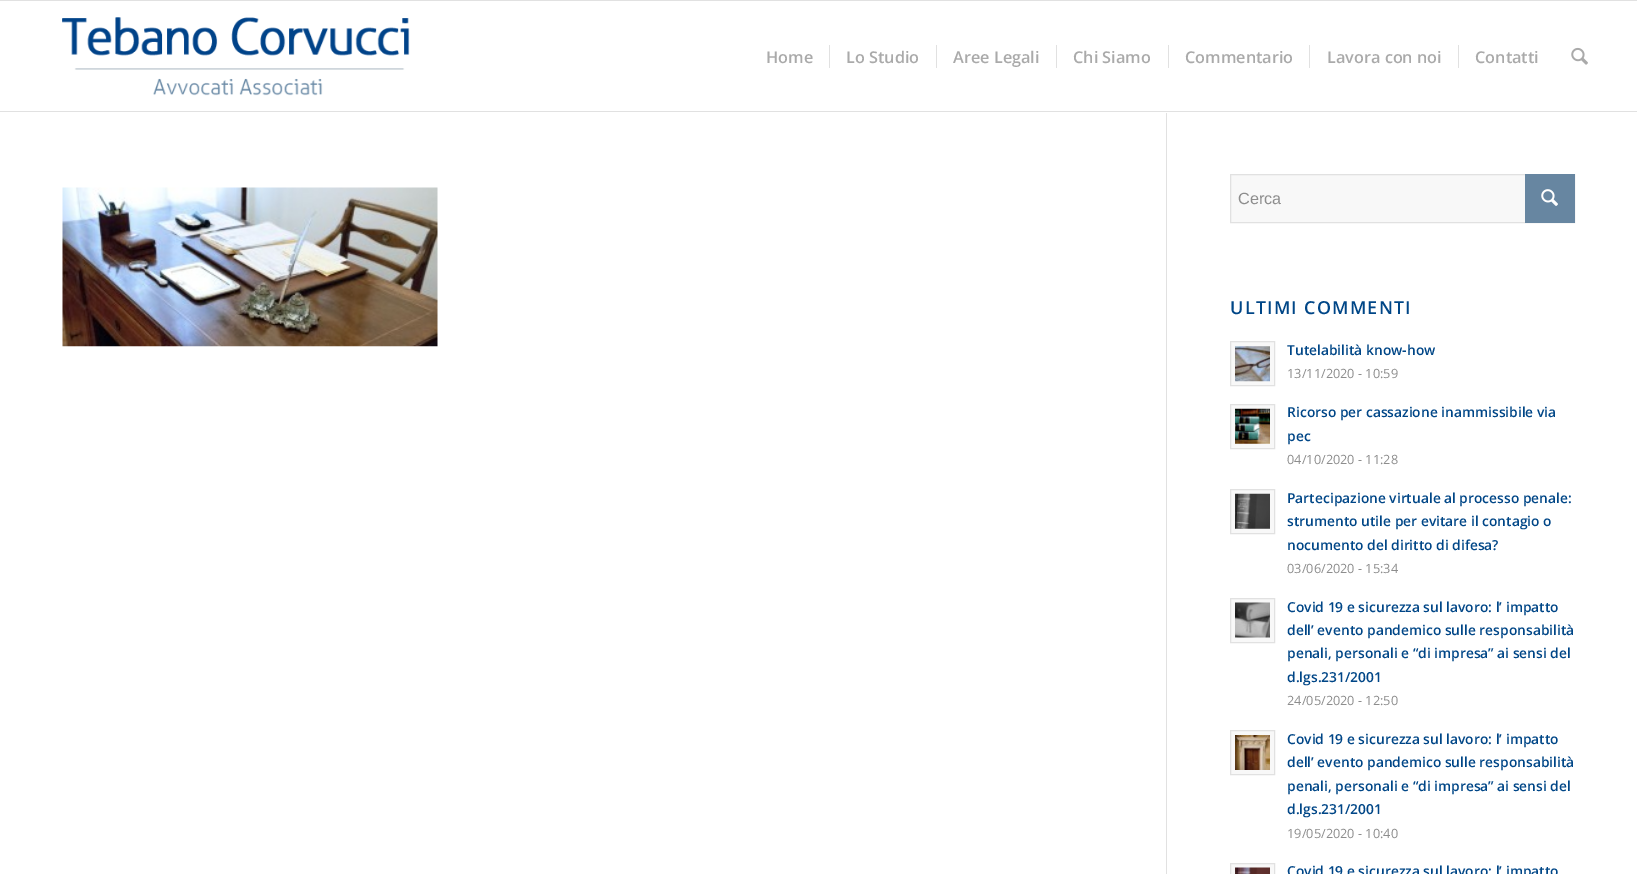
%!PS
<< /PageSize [1637 874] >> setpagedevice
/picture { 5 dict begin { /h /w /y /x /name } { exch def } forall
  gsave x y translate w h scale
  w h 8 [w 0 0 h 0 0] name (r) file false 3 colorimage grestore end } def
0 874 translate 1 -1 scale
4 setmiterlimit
1 setgray
0 0 1637 874 rectfill
0.882 setgray
0 0 1637 1 rectfill
1166 111 1 763 rectfill
0.996 setgray
1166 111 1 2 rectfill
0.882 setgray
0 111 1637 1 rectfill
(img1.rgb) 62 17 348 79 picture
/OpenSans-SemiBold [16.25 0 0 -16.25 0 0] selectfont
0.667 setgray
766 63 moveto (Home) show
846 63 moveto (Lo Studio) show
0.882 setgray
829 45 1 23 rectfill
0.667 setgray
953 63 moveto (Aree Legali) show
0.882 setgray
936 45 1 23 rectfill
0.667 setgray
1073 63 moveto (Chi Siamo) show
0.882 setgray
1056 45 1 23 rectfill
0.667 setgray
1185 63 moveto (Commentario) show
0.882 setgray
1168 45 1 23 rectfill
0.667 setgray
1327 63 moveto (Lavora con noi) show
0.882 setgray
1309 45 1 23 rectfill
0.667 setgray
1475 63 moveto (Contatti) show
0.882 setgray
1458 45 1 23 rectfill
(img2.rgb) 1571 47 17 18 picture
(img3.rgb) 62 187 376 160 picture
0.973 setgray
1231 175 294 47 rectfill
0.882 setgray
1230.5 174.5 344 48 rectstroke
/LiberationSans-Regular [16.25 0 0 -16.25 0 0] selectfont
0.553 setgray
1238 204 moveto (Cerca) show
0.404 0.525 0.631 setrgbcolor
1525 174 50 49 rectfill
(img4.rgb) 1541 189 17 17 picture
/OpenSans-SemiBold [17.9 0 0 -17.9 0 0] selectfont
0 0.275 0.529 setrgbcolor
1230 314 moveto 1.25 0 (ULTIMI COMMENTI) ashow
0.973 setgray
newpath 1230.5 341.5 moveto 1274.5 341.5 lineto 1274.5 385.5 lineto 1230.5 385.5 lineto closepath gsave fill grestore
0.882 setgray
stroke
(img5.rgb) 1235 346 35 36 picture
/OpenSans-SemiBold [13.8 0 0 -13.8 0 0] selectfont
0 0.275 0.529 setrgbcolor
1287 355 moveto (Tutelabilità know-how) show
/OpenSans-Regular [12.75 0 0 -12.75 0 0] selectfont
0.553 setgray
1287 378 moveto (13/11/2020 - 10:59) show
0.973 setgray
newpath 1230.5 404.5 moveto 1274.5 404.5 lineto 1274.5 448.5 lineto 1230.5 448.5 lineto closepath gsave fill grestore
0.882 setgray
stroke
(img6.rgb) 1235 408 35 36 picture
/OpenSans-SemiBold [13.8 0 0 -13.8 0 0] selectfont
0 0.275 0.529 setrgbcolor
1287 417 moveto (Ricorso per cassazione inammissibile via) show
1287 441 moveto (pec) show
/OpenSans-Regular [12.75 0 0 -12.75 0 0] selectfont
0.553 setgray
1287 464 moveto (04/10/2020 - 11:28) show
0.973 setgray
newpath 1230.5 489.5 moveto 1274.5 489.5 lineto 1274.5 533.5 lineto 1230.5 533.5 lineto closepath gsave fill grestore
0.882 setgray
stroke
(img7.rgb) 1235 493 35 36 picture
/OpenSans-SemiBold [13.8 0 0 -13.8 0 0] selectfont
0 0.275 0.529 setrgbcolor
1287 503 moveto (Partecipazione virtuale al processo penale:) show
1287 526 moveto (strumento utile per evitare il contagio o) show
1287 550 moveto (nocumento del diritto di difesa?) show
/OpenSans-Regular [12.75 0 0 -12.75 0 0] selectfont
0.553 setgray
1287 573 moveto (03/06/2020 - 15:34) show
0.973 setgray
newpath 1230.5 598.5 moveto 1274.5 598.5 lineto 1274.5 642.5 lineto 1230.5 642.5 lineto closepath gsave fill grestore
0.882 setgray
stroke
(img8.rgb) 1235 602 35 36 picture
/OpenSans-SemiBold [13.8 0 0 -13.8 0 0] selectfont
0 0.275 0.529 setrgbcolor
1287 612 moveto (Covid 19 e sicurezza sul lavoro: l’ impatto) show
1287 635 moveto (dell’ evento pandemico sulle responsabilità) show
1287 658 moveto (penali, personali e “di impresa” ai sensi del) show
1287 682 moveto (d.lgs.231/2001) show
/OpenSans-Regular [12.75 0 0 -12.75 0 0] selectfont
0.553 setgray
1287 705 moveto (24/05/2020 - 12:50) show
0.973 setgray
newpath 1230.5 730.5 moveto 1274.5 730.5 lineto 1274.5 774.5 lineto 1230.5 774.5 lineto closepath gsave fill grestore
0.882 setgray
stroke
(img9.rgb) 1235 735 35 35 picture
/OpenSans-SemiBold [13.8 0 0 -13.8 0 0] selectfont
0 0.275 0.529 setrgbcolor
1287 744 moveto (Covid 19 e sicurezza sul lavoro: l’ impatto) show
1287 767 moveto (dell’ evento pandemico sulle responsabilità) show
1287 791 moveto (penali, personali e “di impresa” ai sensi del) show
1287 814 moveto (d.lgs.231/2001) show
/OpenSans-Regular [12.75 0 0 -12.75 0 0] selectfont
0.553 setgray
1287 838 moveto (19/05/2020 - 10:40) show
0.973 setgray
newpath 1230.5 863.5 moveto 1274.5 863.5 lineto 1274.5 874.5 lineto 1230.5 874.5 lineto closepath gsave fill grestore
0.882 setgray
stroke
(img10.rgb) 1235 867 35 7 picture
/OpenSans-SemiBold [13.8 0 0 -13.8 0 0] selectfont
0 0.275 0.529 setrgbcolor
1287 876 moveto (Covid 19 e sicurezza sul lavoro: l’ impatto) show
showpage
